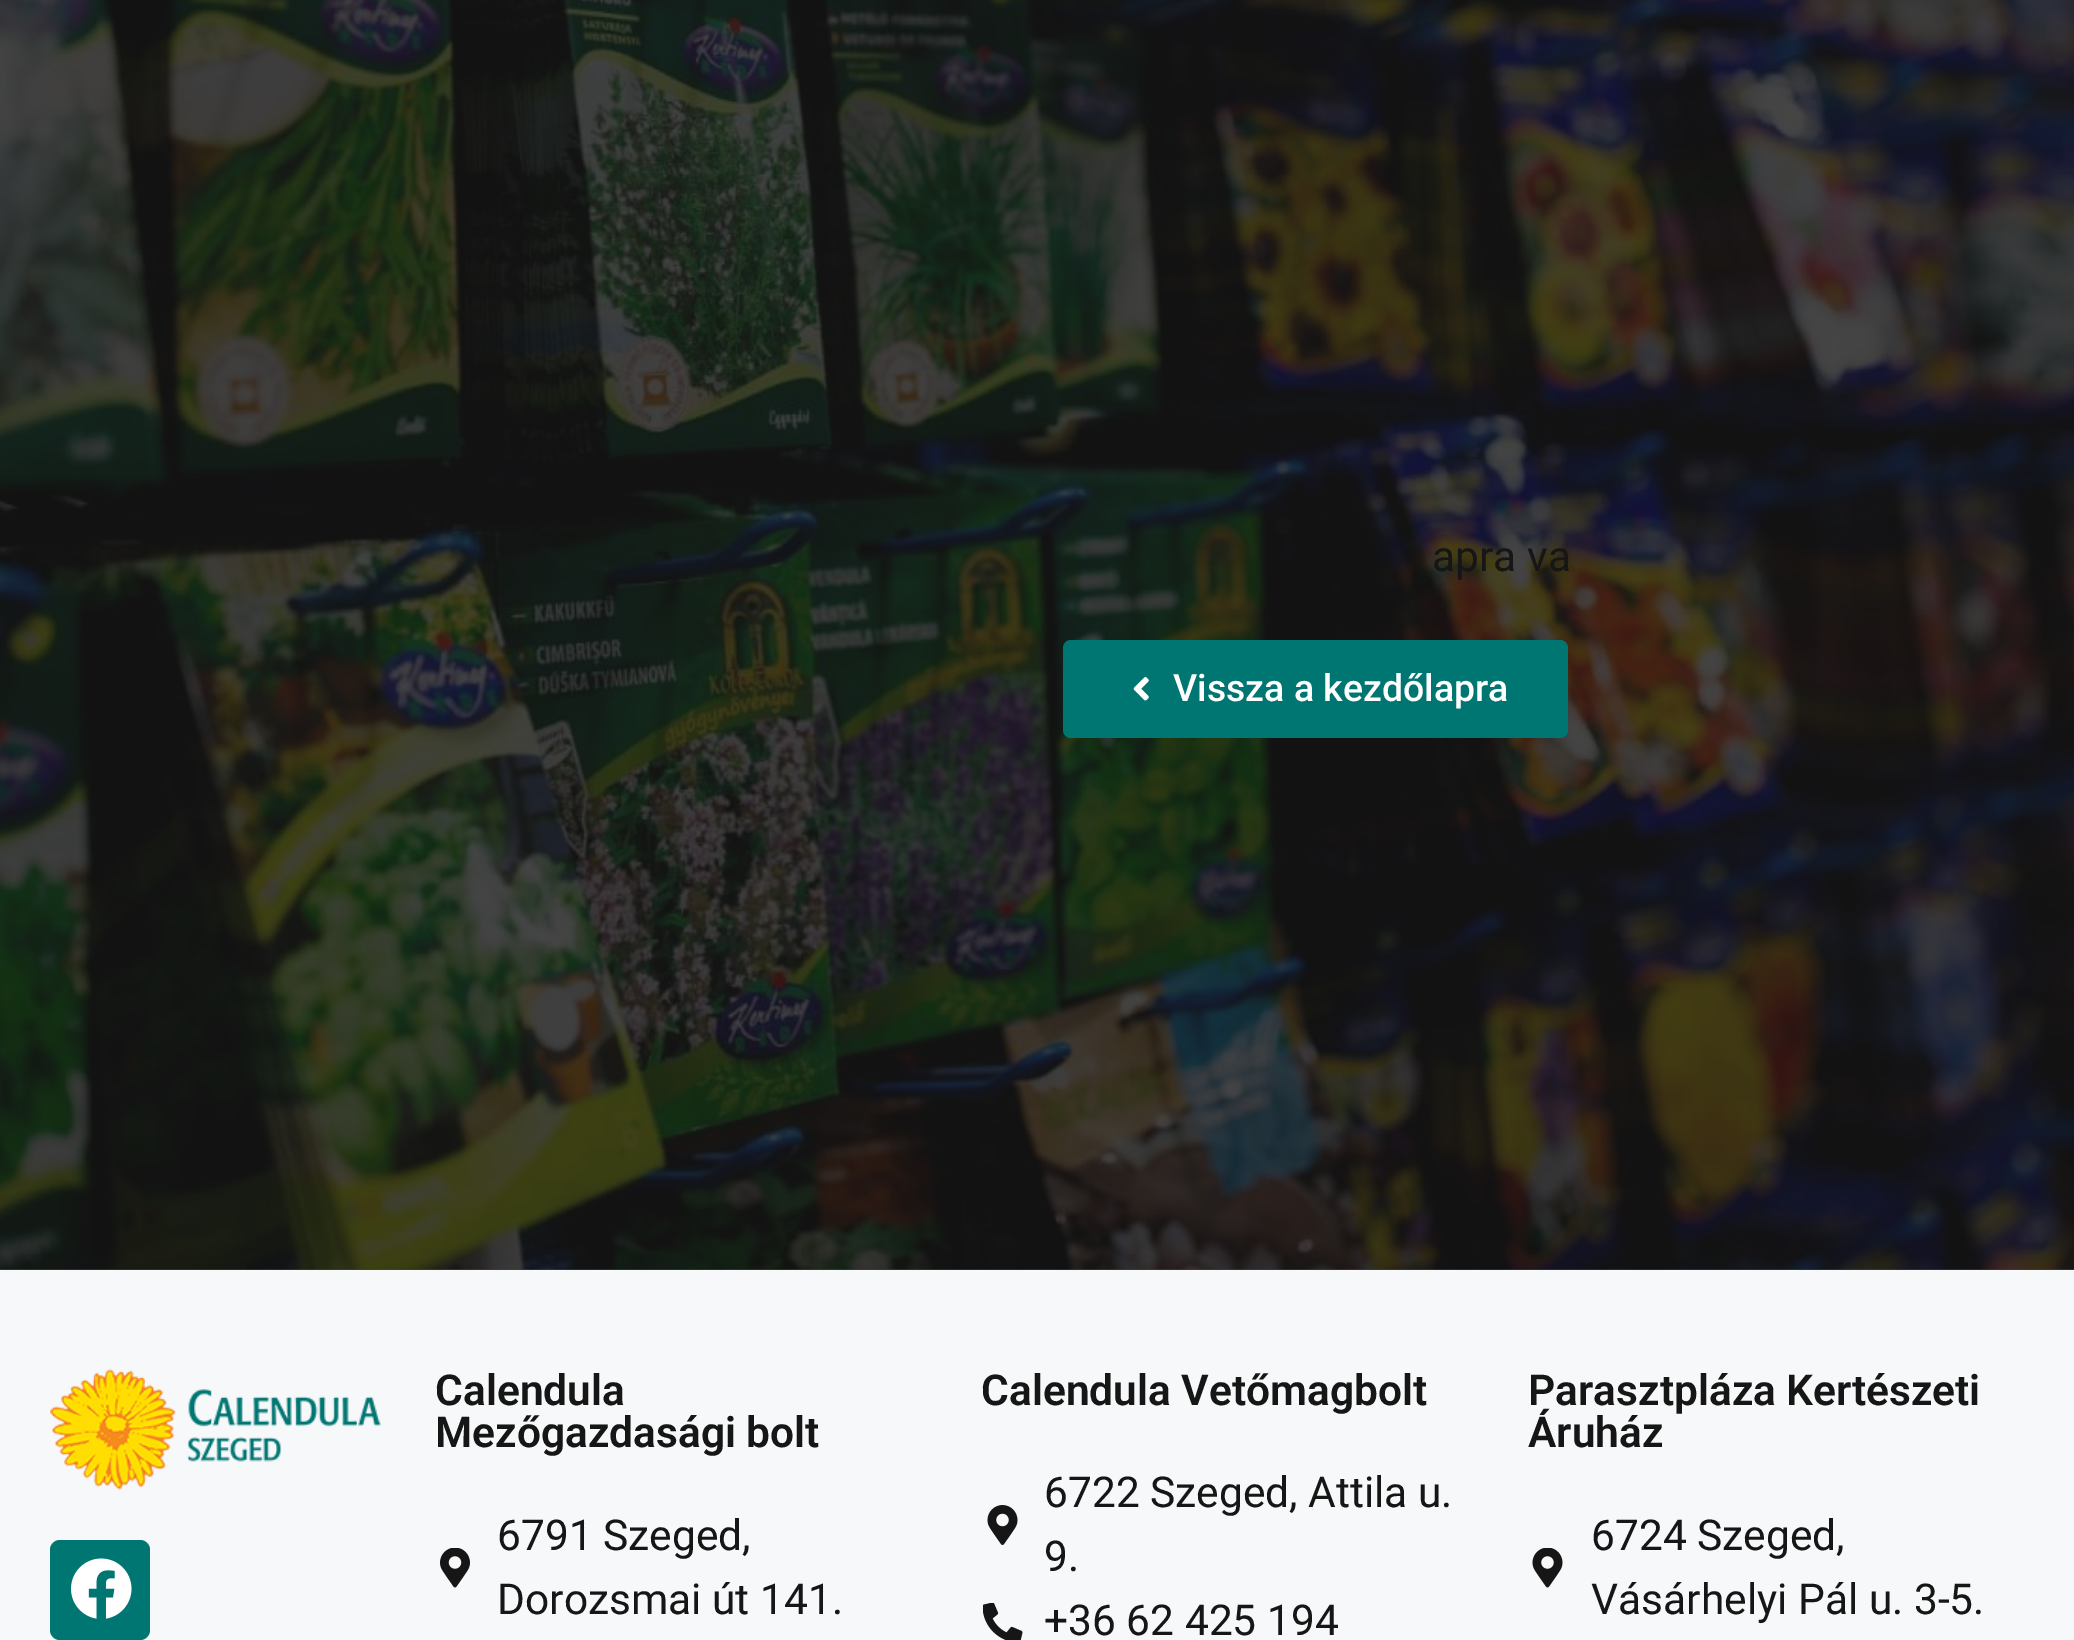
%!PS
<< /PageSize [2074 1640] >> setpagedevice
/roundrect { 5 dict begin { /r /h /w /y /x } { exch def } forall
  x r add y moveto x w add y 2 copy h add r arct x w add y h add x 1 index r arct
  x y h add x y r arct x y 2 copy exch w add exch r arct closepath end } def
/picture { 5 dict begin { /h /w /y /x /name } { exch def } forall
  gsave x y translate w h scale
  w h 8 [w 0 0 h 0 0] name (r) file false 3 colorimage grestore end } def
0 1640 translate 1 -1 scale
4 setmiterlimit
0.969 0.973 0.976 setrgbcolor
0 0 2074 1640 rectfill
0.263 setgray
0 1269 2074 1 rectfill
(img1.rgb) 0 0 2074 1270 picture
/Roboto-Regular [42.5 0 0 -42.5 0 0] selectfont
0.086 setgray
1432 571 moveto (apra va) show
0 0.463 0.451 setrgbcolor
1063 640 505 98 8 roundrect fill
(img2.rgb) 1133 677 16 24 picture
/Roboto-Medium [37.5 0 0 -37.5 0 0] selectfont
1 setgray
1173 701 moveto (Vissza a kezdőlapra) show
(img3.rgb) 50 1369 331 121 picture
0 0.463 0.451 setrgbcolor
50 1540 100 100 10 roundrect fill
(img4.rgb) 71 1558 61 61 picture
/Roboto-SemiBold [42.5 0 0 -42.5 0 0] selectfont
0.086 setgray
435 1405 moveto (Calendula) show
435 1447 moveto (Mezőgazdasági bolt) show
(img5.rgb) 440 1548 30 40 picture
/Roboto-Regular [42.5 0 0 -42.5 0 0] selectfont
497 1550 moveto (6791 Szeged,) show
497 1614 moveto (Dorozsmai út 141.) show
/Roboto-SemiBold [42.5 0 0 -42.5 0 0] selectfont
981 1405 moveto (Calendula Vetőmagbolt) show
(img6.rgb) 987 1505 31 40 picture
/Roboto-Regular [42.5 0 0 -42.5 0 0] selectfont
1044 1507 moveto (6722 Szeged, Attila u.) show
1044 1571 moveto (9.) show
(img7.rgb) 983 1603 40 37 picture
1044 1635 moveto (+36 62 425 194) show
/Roboto-SemiBold [42.5 0 0 -42.5 0 0] selectfont
1528 1405 moveto (Parasztpláza Kertészeti) show
1528 1447 moveto (Áruház) show
(img8.rgb) 1532 1548 31 40 picture
/Roboto-Regular [42.5 0 0 -42.5 0 0] selectfont
1591 1550 moveto (6724 Szeged,) show
1591 1614 moveto (Vásárhelyi Pál u. 3-5.) show
showpage
